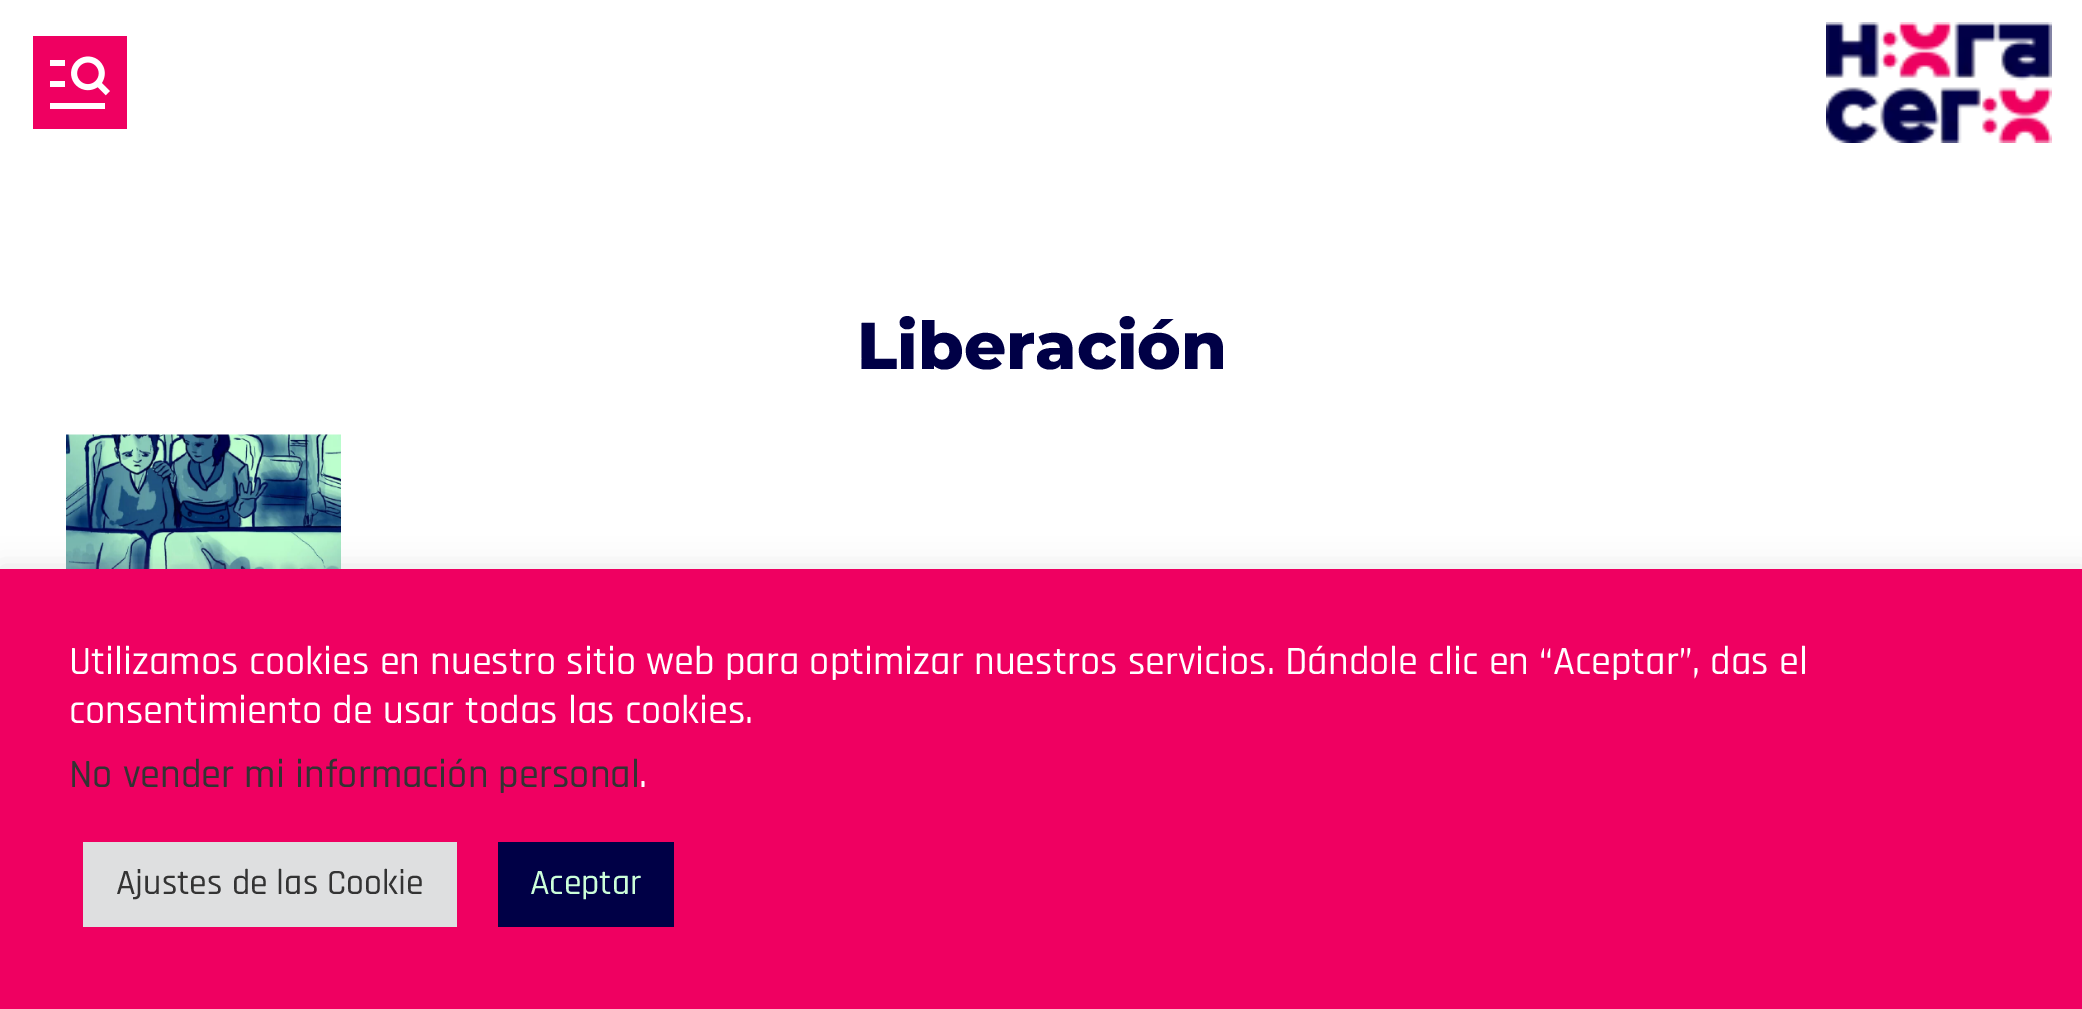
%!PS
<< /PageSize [2082 1009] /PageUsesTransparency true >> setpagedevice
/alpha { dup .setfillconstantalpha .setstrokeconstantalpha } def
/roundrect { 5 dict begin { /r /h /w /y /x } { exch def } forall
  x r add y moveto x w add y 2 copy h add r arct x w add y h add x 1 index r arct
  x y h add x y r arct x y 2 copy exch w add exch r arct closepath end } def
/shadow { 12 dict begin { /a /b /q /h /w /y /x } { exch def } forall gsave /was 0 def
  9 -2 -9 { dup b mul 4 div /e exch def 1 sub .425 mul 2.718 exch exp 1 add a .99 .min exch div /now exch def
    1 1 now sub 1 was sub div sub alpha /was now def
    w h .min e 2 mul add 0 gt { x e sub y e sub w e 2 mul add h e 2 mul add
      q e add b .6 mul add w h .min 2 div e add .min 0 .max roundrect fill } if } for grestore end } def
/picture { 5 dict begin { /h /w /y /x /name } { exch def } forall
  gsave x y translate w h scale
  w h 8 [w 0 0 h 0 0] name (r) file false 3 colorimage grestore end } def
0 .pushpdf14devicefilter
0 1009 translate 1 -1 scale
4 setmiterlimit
1 setgray
0 0 2082 1009 rectfill
0.937 0 0.38 setrgbcolor
33 36 94 93 rectfill
(img1.rgb) 50 56 60 53 picture
(img2.rgb) 1826 22 226 121 picture
/Montserrat-ExtraBold [66 0 0 -66 0 0] selectfont
0 0 0.275 setrgbcolor
857 369 moveto (Liberación) show
(img3.rgb) 66 434 275 135 picture
0.675 0.671 0.671 setrgbcolor
0 567 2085 440 0 14 0.3 shadow
0.937 0 0.38 setrgbcolor
0 569 2082 440 rectfill
/Rajdhani-Medium [40.35 0 0 -40.35 0 0] selectfont
1 setgray
69 674 moveto (Utilizamos cookies en nuestro sitio web para optimizar nuestros servicios. Dándole clic en “Aceptar”, das el) show
69 723 moveto (consentimiento de usar todas las cookies.) show
0.2 setgray
69 787 moveto (No vender mi información personal) show
1 setgray
639 787 moveto (.) show
0.871 0.875 0.878 setrgbcolor
83 842 374 85 rectfill
/Rajdhani-Medium [35.75 0 0 -35.75 0 0] selectfont
0.2 setgray
116 894 moveto (Ajustes de las Cookie) show
0 0 0.275 setrgbcolor
498 842 176 85 rectfill
0.8 1 0.851 setrgbcolor
530 894 moveto (Aceptar) show
.poppdf14devicefilter showpage
